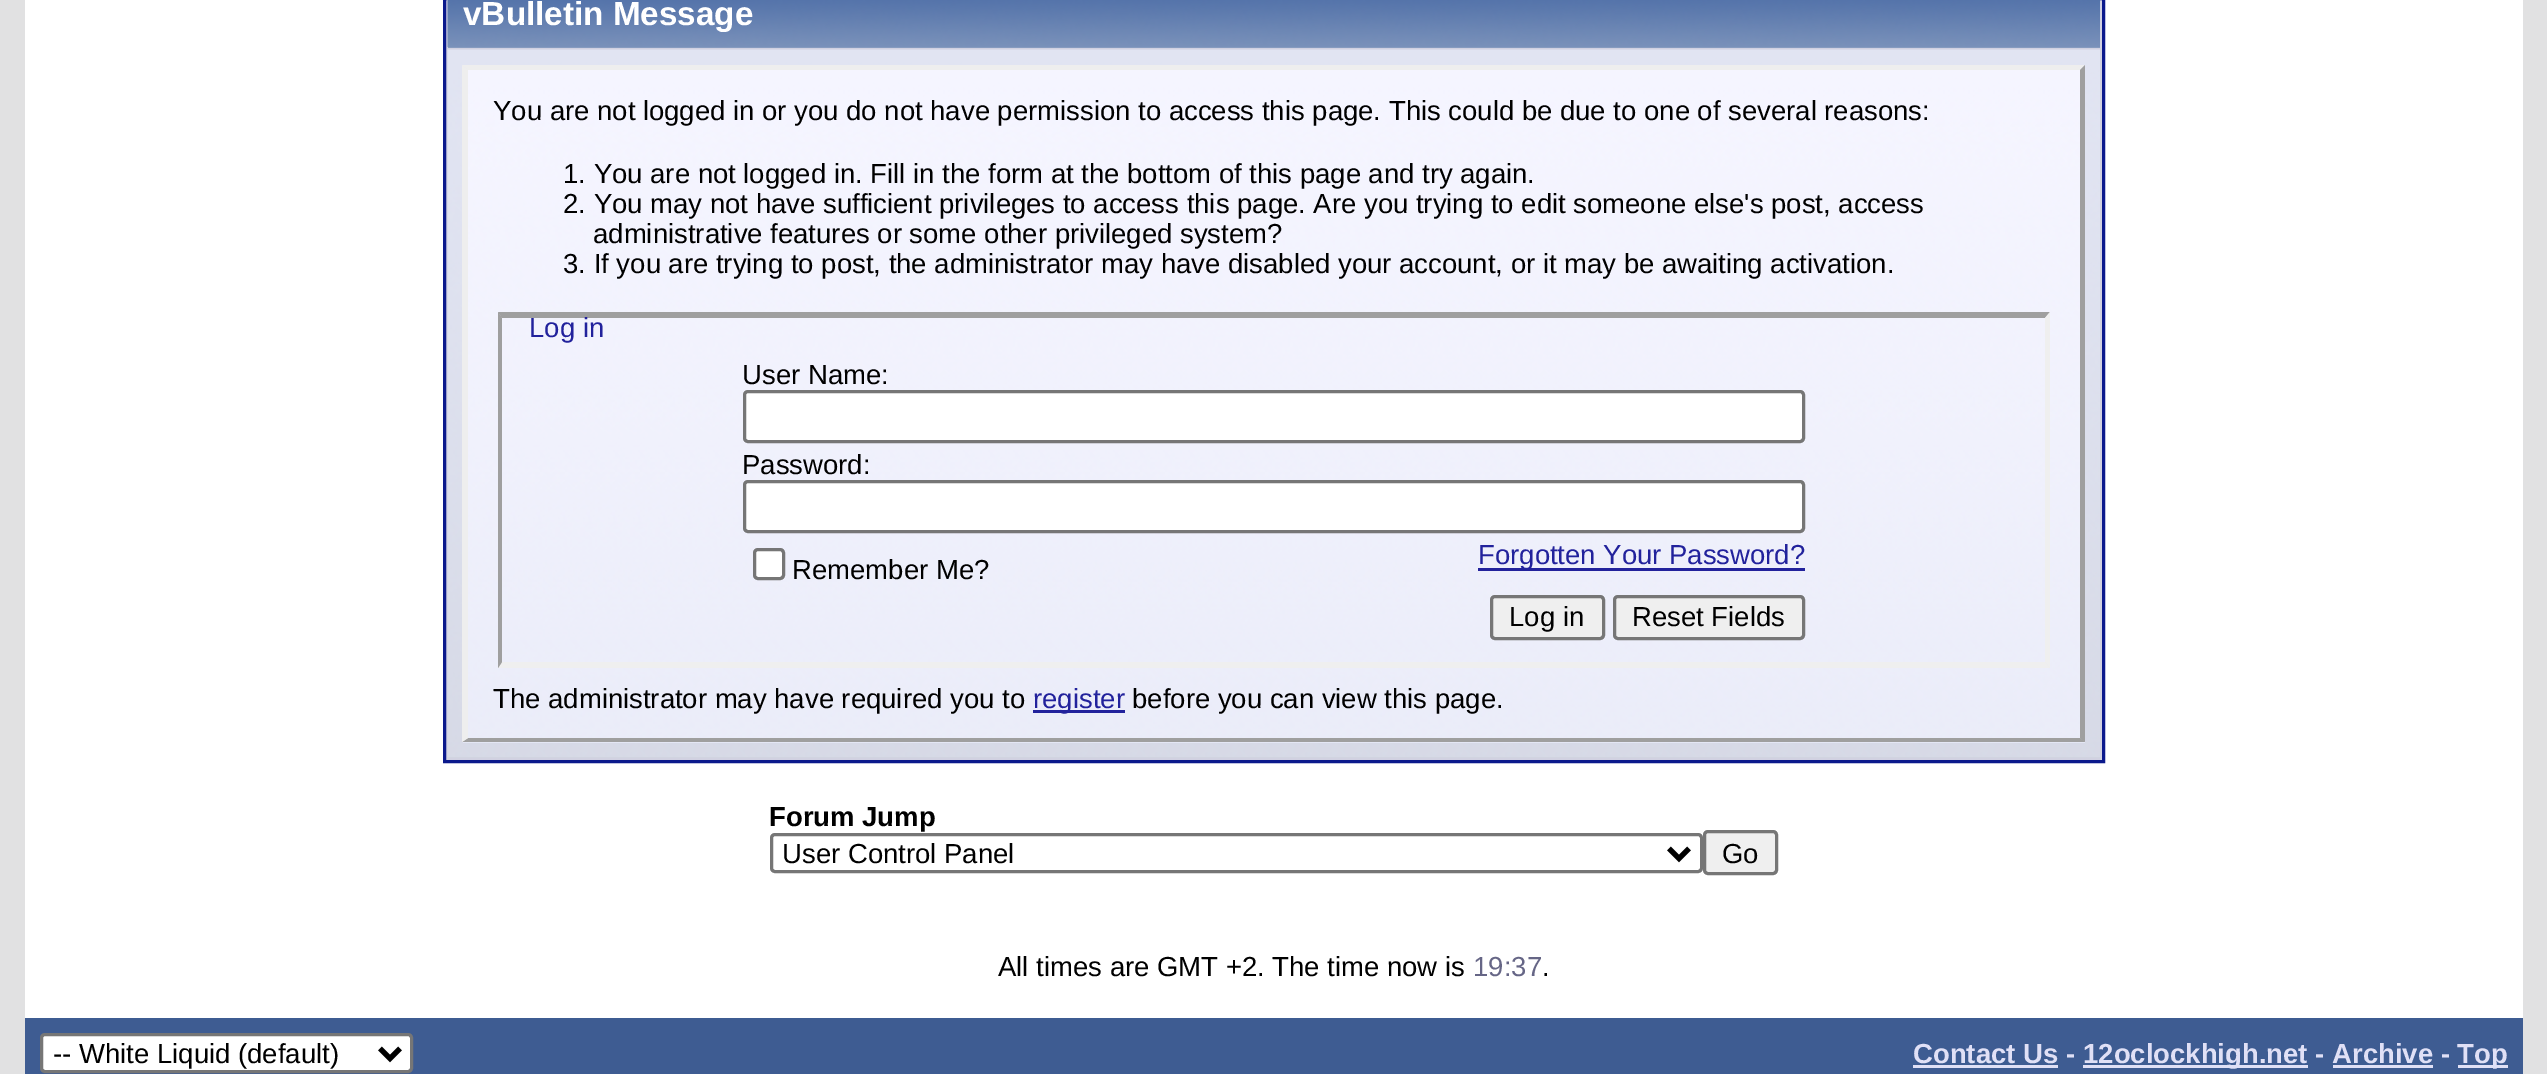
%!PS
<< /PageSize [2547 1074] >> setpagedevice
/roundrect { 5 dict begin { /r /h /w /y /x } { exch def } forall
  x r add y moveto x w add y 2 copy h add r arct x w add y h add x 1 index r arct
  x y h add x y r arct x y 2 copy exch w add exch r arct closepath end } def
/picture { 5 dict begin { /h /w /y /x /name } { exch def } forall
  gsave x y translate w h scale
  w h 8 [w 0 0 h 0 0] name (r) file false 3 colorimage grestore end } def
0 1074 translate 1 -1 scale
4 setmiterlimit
0.882 0.882 0.886 setrgbcolor
0 0 2547 1074 rectfill
1 setgray
25 0 2498 1018 rectfill
0.82 0.82 0.882 setrgbcolor
newpath 444.5 -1.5 moveto 2103.5 -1.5 lineto 2103.5 761.5 lineto 444.5 761.5 lineto closepath gsave fill grestore
0.043 0.098 0.549 setrgbcolor
3 setlinewidth
stroke
0.525 0.608 0.749 setrgbcolor
448 47 1652 1 rectfill
(img1.rgb) 447 0 1653 47 picture
/LiberationSans-Bold [33.25 0 0 -33.25 0 0] selectfont
1 setgray
463 25 moveto (vBulletin Message) show
0.82 0.831 0.878 setrgbcolor
448 757 1652 1 rectfill
(img2.rgb) 447 49 1653 708 picture
0.894 0.906 0.961 setrgbcolor
463 65 1622 678 rectfill
(img3.rgb) 462 69 1623 673 picture
0.933 setgray
newpath 462 65 moveto 2085 65 lineto 2080 70 lineto 468 70 lineto closepath fill
0.624 setgray
newpath 2085 65 moveto 2085 742 lineto 2080 738 lineto 2080 70 lineto closepath fill
newpath 2085 742 moveto 462 742 lineto 468 738 lineto 2080 738 lineto closepath fill
0.933 setgray
newpath 462 742 moveto 462 65 lineto 468 70 lineto 468 738 lineto closepath fill
/LiberationSans-Regular [27.5 0 0 -27.5 0 0] selectfont
0 setgray
493 120 moveto (You are not logged in or you do not have permission to access this page. This could be due to one of several reasons:) show
563 183 moveto (1. You are not logged in. Fill in the form at the bottom of this page and try again.) show
563 213 moveto (2. You may not have sufficient privileges to access this page. Are you trying to edit someone else's post, access) show
593 243 moveto (administrative features or some other privileged system?) show
563 273 moveto (3. If you are trying to post, the administrator may have disabled your account, or it may be awaiting activation.) show
0.624 setgray
newpath 498 312 moveto 2050 312 lineto 2045 318 lineto 502 318 lineto closepath fill
0.937 setgray
newpath 2050 312 moveto 2050 668 lineto 2045 662 lineto 2045 318 lineto closepath fill
newpath 2050 668 moveto 498 668 lineto 502 662 lineto 2045 662 lineto closepath fill
0.624 setgray
newpath 498 668 moveto 498 312 lineto 502 318 lineto 502 662 lineto closepath fill
0.133 0.133 0.612 setrgbcolor
529 337 moveto (Log in) show
0 setgray
742 384 moveto (User Name:) show
1 setgray
744.5 391.5 1059 50 3.5 roundrect gsave fill grestore
0.463 setgray
stroke
0 setgray
742 474 moveto (Password:) show
1 setgray
744.5 481.5 1059 50 3.5 roundrect gsave fill grestore
0.463 setgray
stroke
1 setgray
754.5 549.5 29 29 3.5 roundrect gsave fill grestore
0.463 setgray
stroke
0 setgray
792 579 moveto (Remember Me?) show
0.133 0.133 0.612 setrgbcolor
1478 568 327 3 rectfill
1478 564 moveto (Forgotten Your Password?) show
0.937 setgray
1491.5 596.5 112 42 3.5 roundrect gsave fill grestore
0.463 setgray
stroke
0 setgray
1509 626 moveto (Log in) show
0.937 setgray
1614.5 596.5 189 42 3.5 roundrect gsave fill grestore
0.463 setgray
stroke
0 setgray
1632 626 moveto (Reset Fields) show
493 708 moveto (The administrator may have required you to) show
0.133 0.133 0.612 setrgbcolor
1033 710 92 3 rectfill
1033 708 moveto (register) show
0 setgray
1132 708 moveto (before you can view this page.) show
/LiberationSans-Bold [27.5 0 0 -27.5 0 0] selectfont
769 826 moveto (Forum Jump) show
0.463 setgray
771.5 834.5 930 37 3.5 roundrect stroke
0 setgray
5 setlinewidth
newpath 1669 848.5 moveto 1679 858.5 lineto 1689 848.5 lineto stroke
/LiberationSans-Regular [27.5 0 0 -27.5 0 0] selectfont
782 863 moveto (User Control Panel) show
0.937 setgray
1704.5 831.5 72 42 3.5 roundrect gsave fill grestore
0.463 setgray
3 setlinewidth
stroke
0 setgray
1722 863 moveto (Go) show
998 976 moveto (All times are GMT +2. The time now is) show
0.4 0.4 0.525 setrgbcolor
1473 976 moveto (19:37) show
0 setgray
1542 976 moveto (.) show
0.243 0.361 0.573 setrgbcolor
25 1018 2498 56 rectfill
1 setgray
41.5 1034.5 370 37 3.5 roundrect gsave fill grestore
0.463 setgray
stroke
0 setgray
5 setlinewidth
newpath 380 1048.5 moveto 390 1058.5 lineto 400 1048.5 lineto stroke
53 1063 moveto (-- White Liquid \(default\)) show
/LiberationSans-Bold [27.5 0 0 -27.5 0 0] selectfont
0.878 0.878 0.965 setrgbcolor
1913 1063 moveto (Contact Us -) show
1913 1065 145 3 rectfill
2083 1065 225 3 rectfill
2083 1063 moveto (12oclockhigh.net - Archive -) show
2333 1065 100 3 rectfill
2458 1065 50 3 rectfill
2457 1063 moveto (Top) show
showpage
